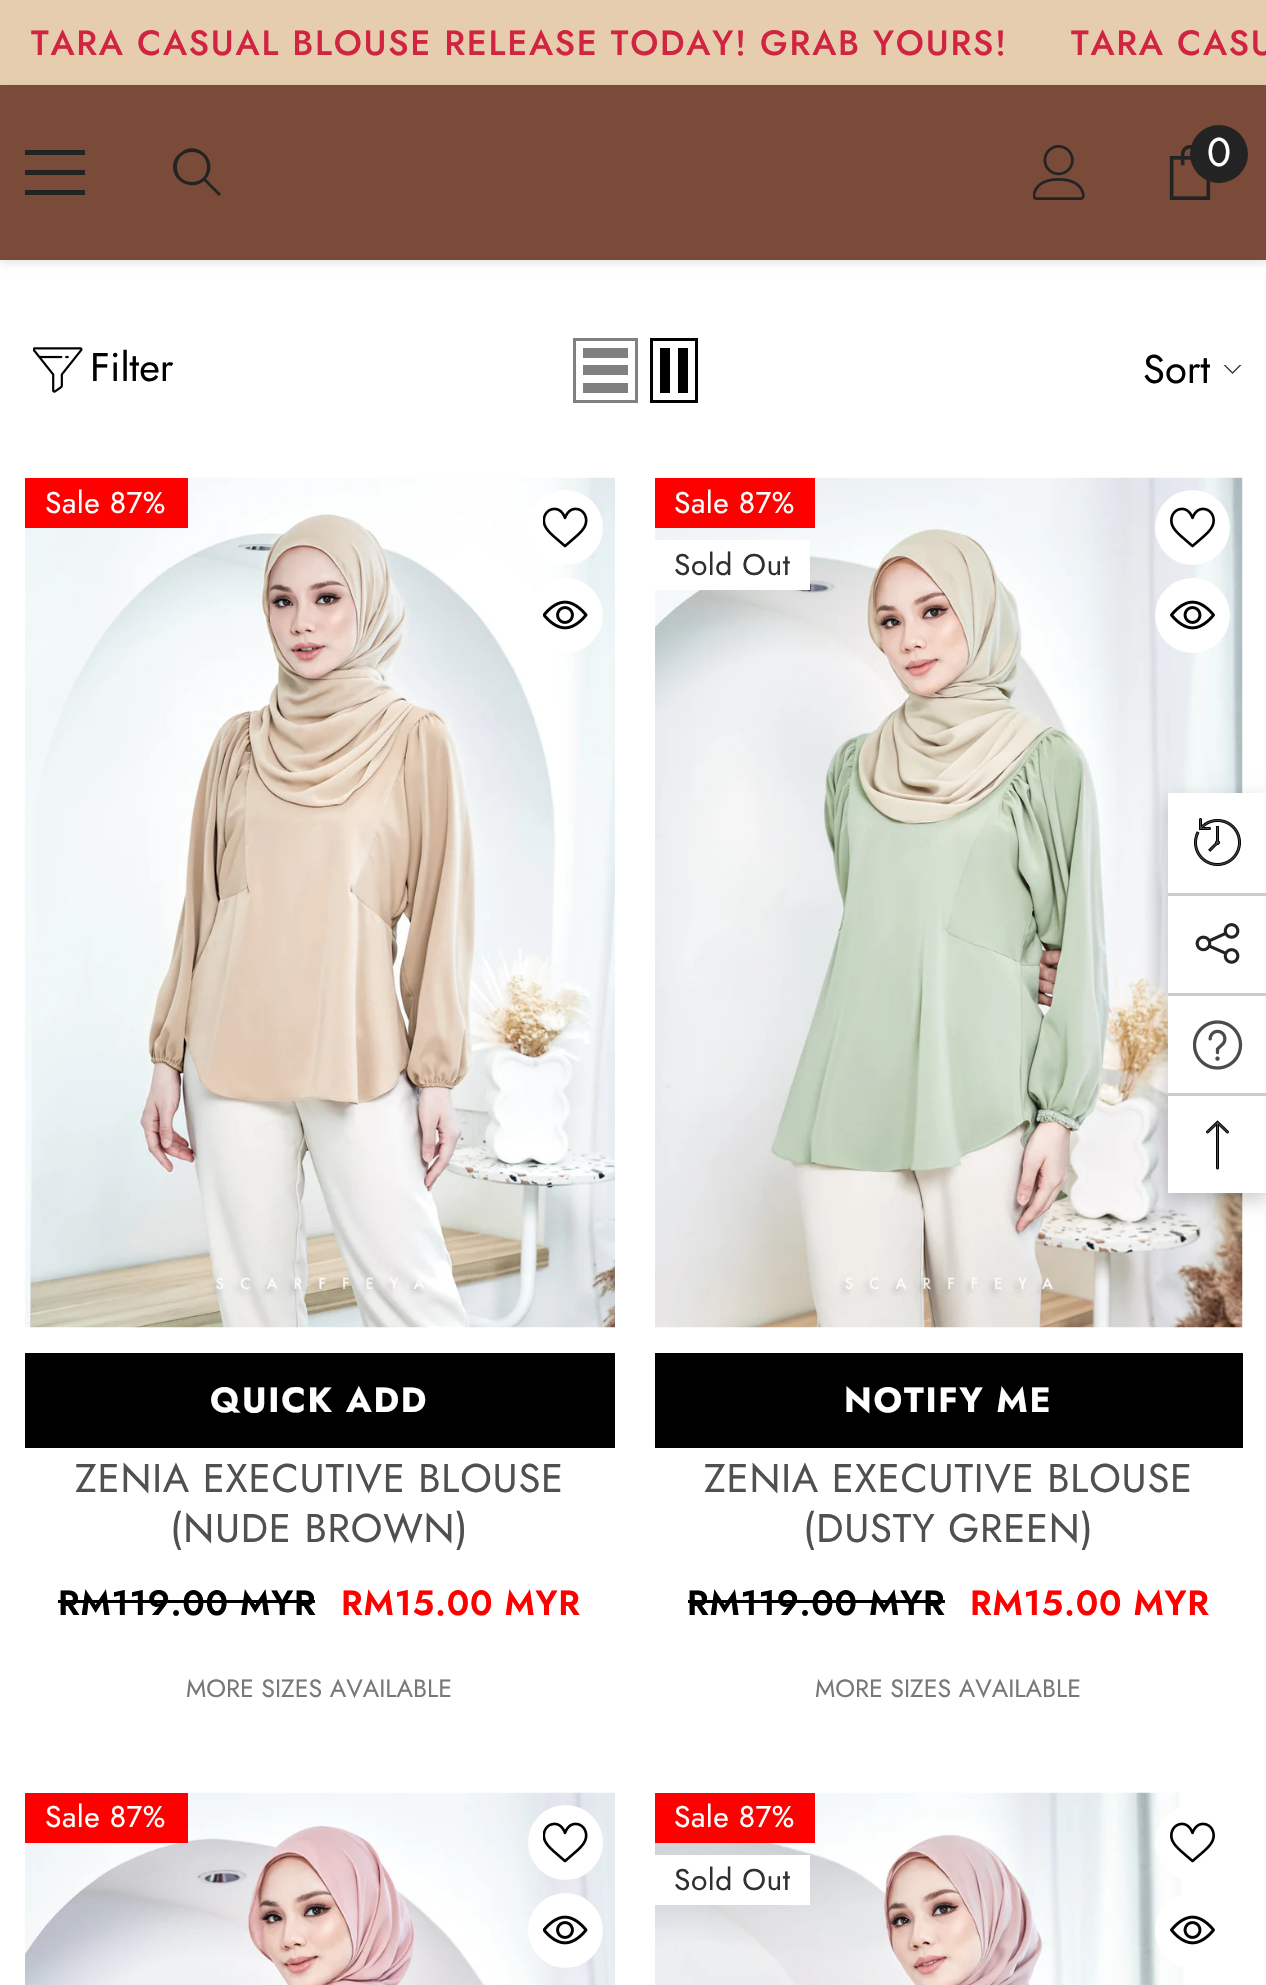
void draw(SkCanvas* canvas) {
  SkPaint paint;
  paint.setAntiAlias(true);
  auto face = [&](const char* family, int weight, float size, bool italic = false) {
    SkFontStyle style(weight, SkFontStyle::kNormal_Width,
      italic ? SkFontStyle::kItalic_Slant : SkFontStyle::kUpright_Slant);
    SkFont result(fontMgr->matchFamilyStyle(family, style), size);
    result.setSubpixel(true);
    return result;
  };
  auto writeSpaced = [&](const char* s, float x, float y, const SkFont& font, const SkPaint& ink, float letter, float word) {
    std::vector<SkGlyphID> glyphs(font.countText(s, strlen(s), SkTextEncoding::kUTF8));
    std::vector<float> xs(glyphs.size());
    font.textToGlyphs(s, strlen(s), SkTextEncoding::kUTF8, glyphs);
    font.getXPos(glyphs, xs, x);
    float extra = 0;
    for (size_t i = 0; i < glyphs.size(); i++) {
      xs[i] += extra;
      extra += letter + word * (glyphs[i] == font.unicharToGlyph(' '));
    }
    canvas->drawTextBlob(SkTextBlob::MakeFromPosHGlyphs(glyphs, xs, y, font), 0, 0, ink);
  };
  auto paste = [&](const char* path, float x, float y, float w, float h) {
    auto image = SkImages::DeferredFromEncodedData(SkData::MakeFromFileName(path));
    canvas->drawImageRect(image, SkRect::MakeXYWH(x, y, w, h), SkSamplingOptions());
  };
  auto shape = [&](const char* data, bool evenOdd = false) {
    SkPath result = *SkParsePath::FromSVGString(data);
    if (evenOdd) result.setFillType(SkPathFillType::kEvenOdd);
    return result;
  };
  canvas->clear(0xffffffff);
  paint.setColor(0xffe6cdad);
  canvas->drawRect(SkRect::MakeXYWH(0, 0, 1266, 85), paint);
  paint.setColor(0x1a000000);
  paint.setMaskFilter(SkMaskFilter::MakeBlur(kNormal_SkBlurStyle, 4));
  canvas->drawRect(SkRect::MakeXYWH(0, 88, 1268, 175), paint);
  paint.setMaskFilter(nullptr);
  {
    const struct { float x, y, w, h; SkColor color; } items[] = {
      {0, 85, 1266, 175, 0xff7a4b39},
      {25, 170, 60, 5, 0xff232323},
      {25, 150, 60, 5, 0xff232323},
      {25, 190, 60, 5, 0xff232323},
    };
    for (auto [x, y, w, h, color] : items) {
      paint.setColor(color);
      canvas->drawRect(SkRect::MakeXYWH(x, y, w, h), paint);
    }
  }
  canvas->drawPath(shape("M173 167C173 182 192 191 204 181L219 196L221 194L206 179C221 161 196 137 179 154C175 157 173 162 173 167ZM177 167C177 147 207 147 207 167C207 187 177 187 177 167Z"), paint);
  paste("img/1.png", 1033, 145, 52, 55);
  paste("img/2.png", 1169, 145, 42, 55);
  canvas->drawCircle(1219, 154, 29, paint);
  paste("img/3.png", 33, 347, 50, 46);
  paint.setStroke(true);
  paint.setStrokeWidth(3);
  paint.setColor(0xff808080);
  canvas->drawRect(SkRect::MakeXYWH(574.5f, 339.5f, 62, 62), paint);
  paint.setStroke(false);
  {
    const struct { float x, y, w, h; SkColor color; } items[] = {
      {583, 383, 45, 10, 0xff808080},
      {583, 365, 45, 10, 0xff808080},
      {583, 348, 45, 10, 0xff808080},
    };
    for (auto [x, y, w, h, color] : items) {
      paint.setColor(color);
      canvas->drawRect(SkRect::MakeXYWH(x, y, w, h), paint);
    }
  }
  paint.setStroke(true);
  paint.setColor(0xff000000);
  canvas->drawRect(SkRect::MakeXYWH(651.5f, 339.5f, 45, 62), paint);
  paint.setStroke(false);
  canvas->drawRect(SkRect::MakeXYWH(678, 348, 10, 45), paint);
  canvas->drawRect(SkRect::MakeXYWH(660, 348, 10, 45), paint);
  canvas->save();
  canvas->clipRect(SkRect::MakeXYWH(1223, 365, 20, 13));
  paint.setColor(0xff3c3c3c);
  canvas->drawPath(shape("M1232.5 372L1224.5 364H1222.5L1232.5 374L1242.5 364H1240.5Z"), paint);
  canvas->restore();
  paste("img/4.png", 25, 477, 590, 851);
  paint.setColor(0xffff0000);
  canvas->drawRect(SkRect::MakeXYWH(25, 478, 163, 50), paint);
  paint.setColor(0xffffffff);
  canvas->drawCircle(565.5f, 527.5f, 37.5f, paint);
  paste("img/5.png", 543, 507, 45, 41);
  canvas->drawCircle(565.5f, 615.5f, 37.5f, paint);
  paste("img/6.png", 543, 600, 45, 30);
  paint.setColor(0xff000000);
  canvas->drawRect(SkRect::MakeXYWH(25, 1353, 590, 95), paint);
  canvas->drawRect(SkRect::MakeXYWH(58, 1600, 257, 3), paint);
  paste("img/7.png", 655, 477, 588, 851);
  paint.setColor(0xffff0000);
  canvas->drawRect(SkRect::MakeXYWH(655, 478, 160, 50), paint);
  paint.setColor(0xffffffff);
  canvas->drawRect(SkRect::MakeXYWH(655, 540, 155, 50), paint);
  canvas->drawCircle(1192.5f, 527.5f, 37.5f, paint);
  paste("img/8.png", 1170, 507, 45, 41);
  canvas->drawCircle(1192.5f, 615.5f, 37.5f, paint);
  paste("img/9.png", 1170, 600, 45, 30);
  paint.setColor(0xff000000);
  canvas->drawRect(SkRect::MakeXYWH(655, 1353, 588, 95), paint);
  canvas->drawRect(SkRect::MakeXYWH(688, 1600, 257, 3), paint);
  paste("img/10.png", 25, 1792, 590, 193);
  paint.setColor(0xffff0000);
  canvas->drawRect(SkRect::MakeXYWH(25, 1793, 163, 50), paint);
  paint.setColor(0xffffffff);
  canvas->drawCircle(565.5f, 1842.5f, 37.5f, paint);
  paste("img/5.png", 543, 1822, 45, 41);
  canvas->drawCircle(565.5f, 1930.5f, 37.5f, paint);
  paste("img/6.png", 543, 1915, 45, 30);
  paste("img/11.png", 655, 1792, 529, 193);
  paint.setColor(0xffff0000);
  canvas->drawRect(SkRect::MakeXYWH(655, 1793, 160, 50), paint);
  paint.setColor(0xffffffff);
  canvas->drawRect(SkRect::MakeXYWH(655, 1855, 155, 50), paint);
  canvas->drawCircle(1192.5f, 1842.5f, 37.5f, paint);
  paste("img/8.png", 1170, 1822, 45, 41);
  canvas->drawCircle(1192.5f, 1930.5f, 37.5f, paint);
  paste("img/9.png", 1170, 1915, 45, 30);
  paint.setColor(0x33000000);
  paint.setMaskFilter(SkMaskFilter::MakeBlur(kNormal_SkBlurStyle, 9));
  canvas->drawRect(SkRect::MakeXYWH(1168, 800, 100, 400), paint);
  paint.setMaskFilter(nullptr);
  paint.setColor(0xffffffff);
  canvas->drawRect(SkRect::MakeXYWH(1168, 793, 98, 400), paint);
  paste("img/12.png", 1194, 818, 47, 48);
  paint.setColor(0xffcccccc);
  canvas->drawRect(SkRect::MakeXYWH(1168, 893, 98, 3), paint);
  paste("img/13.png", 1195, 923, 45, 41);
  canvas->drawRect(SkRect::MakeXYWH(1168, 993, 98, 3), paint);
  paste("img/14.png", 1193, 1020, 50, 50);
  canvas->drawRect(SkRect::MakeXYWH(1168, 1093, 98, 3), paint);
  paste("img/15.png", 1206, 1120, 23, 50);
  auto f0 = face("Jost", 500, 35);
  paint.setColor(0xffd12442);
  writeSpaced("TARA CASUAL BLOUSE RELEASE TODAY! GRAB YOURS!", 31, 55, f0, paint, 1.75f, 0);
  writeSpaced("TARA CASU", 1071, 55, f0, paint, 1.75f, 0);
  auto f1 = face("Jost", 400, 40);
  paint.setColor(0xffffffff);
  canvas->drawString("0", 1207, 166, f1, paint);
  paint.setColor(0xff000000);
  canvas->drawString("Filter", 90, 381, f1, paint);
  canvas->drawString("Sort", 1143, 383, f1, paint);
  auto f2 = face("Jost", 400, 30);
  paint.setColor(0xffffffff);
  writeSpaced("Sale 87%", 45, 513, f2, paint, 0.5f, 0);
  auto f3 = face("Jost", 700, 35);
  writeSpaced("QUICK ADD", 210, 1412, f3, paint, 1.75f, 0);
  paint.setColor(0xff505050);
  writeSpaced("ZENIA EXECUTIVE BLOUSE", 75, 1492, f1, paint, 0.8f, 0);
  writeSpaced("(NUDE BROWN)", 170, 1542, f1, paint, 0.8f, 0);
  auto f4 = face("Jost", 600, 35);
  paint.setColor(0xff000000);
  writeSpaced("RM119.00 MYR", 58, 1615, f4, paint, 0.75f, 0);
  paint.setColor(0xffff0000);
  writeSpaced("RM15.00 MYR", 341, 1615, f4, paint, 0.75f, 0);
  auto f5 = face("Jost", 400, 25);
  paint.setColor(0xff787878);
  canvas->drawString("MORE SIZES AVAILABLE", 186, 1697, f5, paint);
  paint.setColor(0xffffffff);
  writeSpaced("Sale 87%", 674, 513, f2, paint, 0.5f, 0);
  paint.setColor(0xff31302f);
  writeSpaced("Sold Out", 674, 575, f2, paint, 0.5f, 0);
  paint.setColor(0xffffffff);
  writeSpaced("NOTIFY ME", 844, 1412, f3, paint, 1.75f, 0);
  paint.setColor(0xff505050);
  writeSpaced("ZENIA EXECUTIVE BLOUSE", 704, 1492, f1, paint, 0.8f, 0);
  writeSpaced("(DUSTY GREEN)", 803, 1542, f1, paint, 0.8f, 0);
  paint.setColor(0xff000000);
  writeSpaced("RM119.00 MYR", 687, 1615, f4, paint, 0.75f, 0);
  paint.setColor(0xffff0000);
  writeSpaced("RM15.00 MYR", 970, 1615, f4, paint, 0.75f, 0);
  paint.setColor(0xff787878);
  canvas->drawString("MORE SIZES AVAILABLE", 815, 1697, f5, paint);
  paint.setColor(0xffffffff);
  writeSpaced("Sale 87%", 45, 1827, f2, paint, 0.5f, 0);
  writeSpaced("Sale 87%", 674, 1827, f2, paint, 0.5f, 0);
  paint.setColor(0xff31302f);
  writeSpaced("Sold Out", 674, 1890, f2, paint, 0.5f, 0);
}
